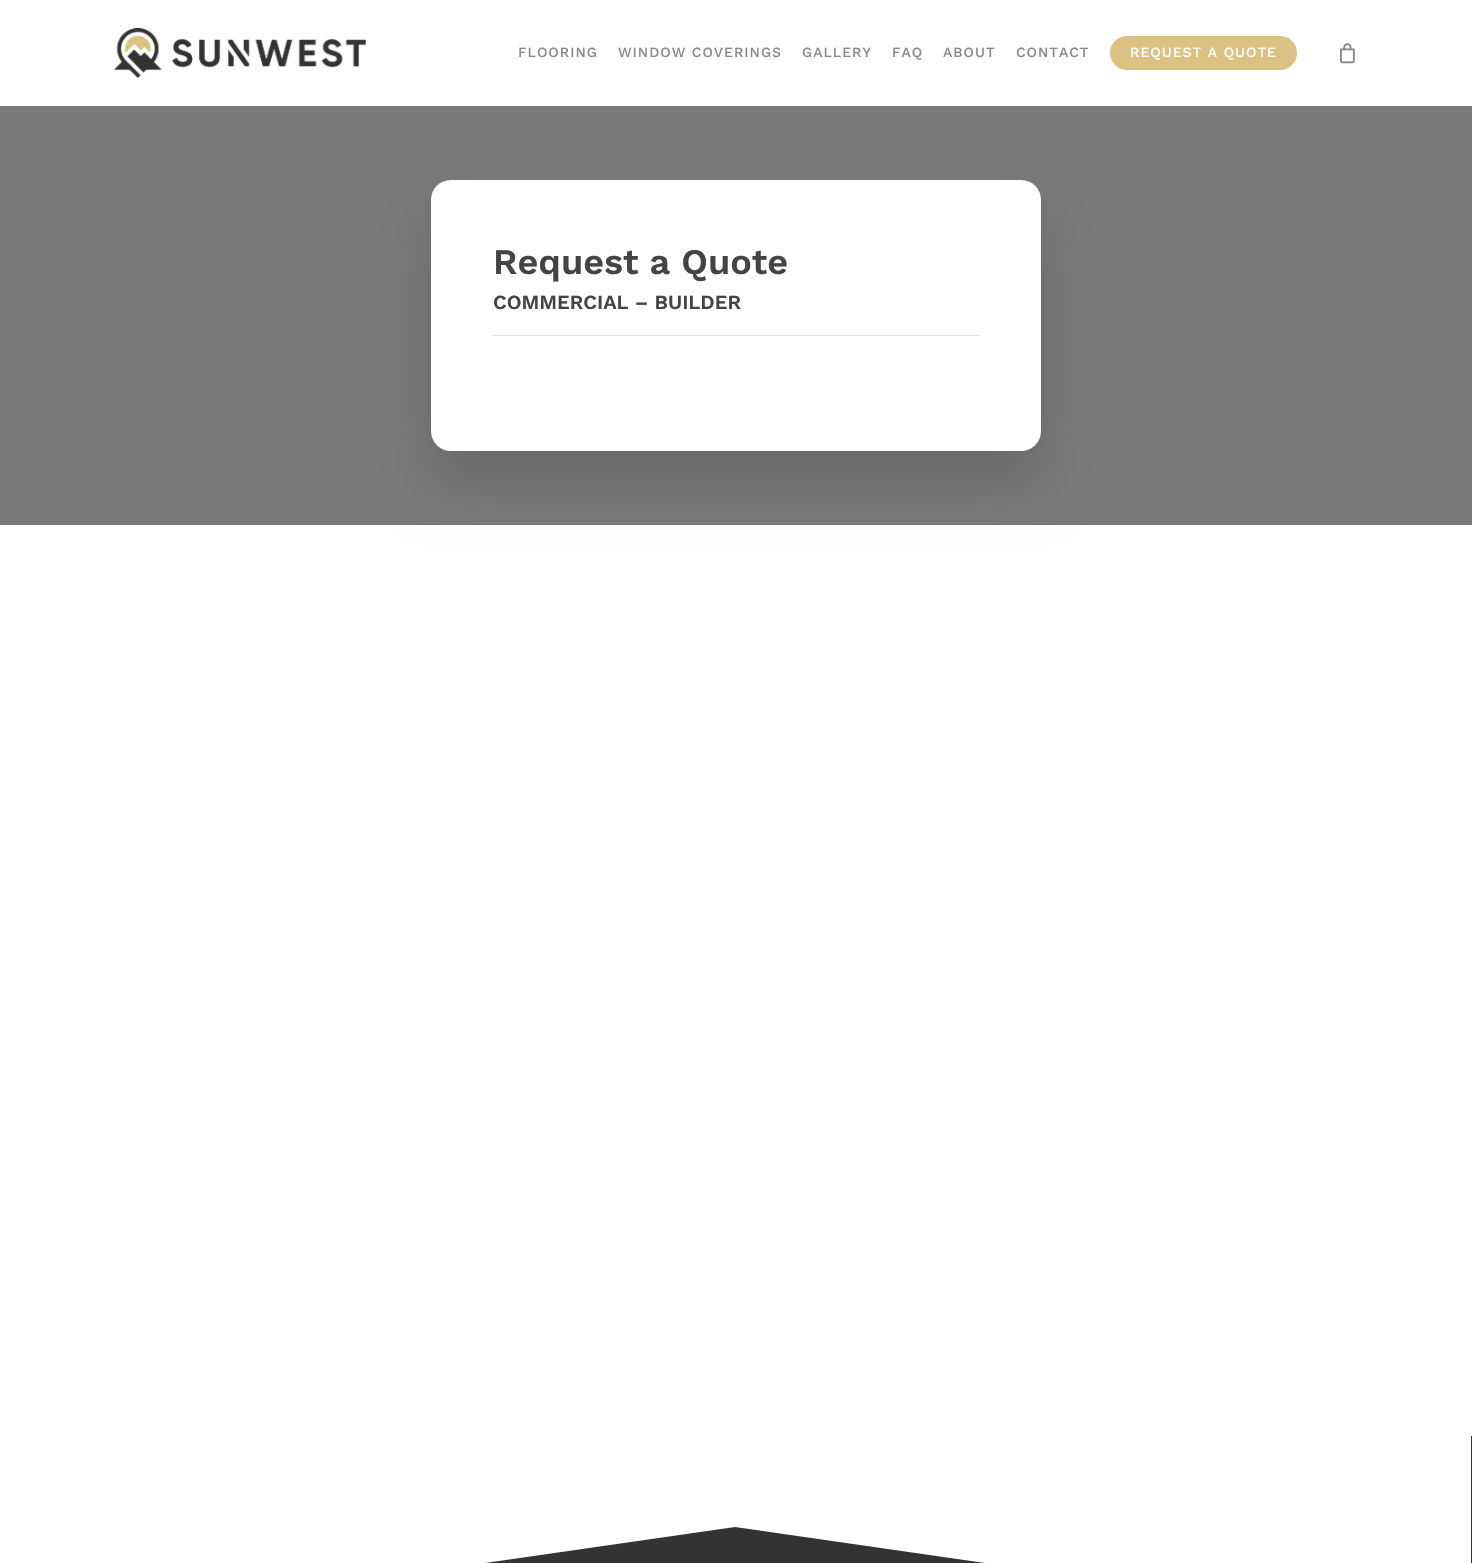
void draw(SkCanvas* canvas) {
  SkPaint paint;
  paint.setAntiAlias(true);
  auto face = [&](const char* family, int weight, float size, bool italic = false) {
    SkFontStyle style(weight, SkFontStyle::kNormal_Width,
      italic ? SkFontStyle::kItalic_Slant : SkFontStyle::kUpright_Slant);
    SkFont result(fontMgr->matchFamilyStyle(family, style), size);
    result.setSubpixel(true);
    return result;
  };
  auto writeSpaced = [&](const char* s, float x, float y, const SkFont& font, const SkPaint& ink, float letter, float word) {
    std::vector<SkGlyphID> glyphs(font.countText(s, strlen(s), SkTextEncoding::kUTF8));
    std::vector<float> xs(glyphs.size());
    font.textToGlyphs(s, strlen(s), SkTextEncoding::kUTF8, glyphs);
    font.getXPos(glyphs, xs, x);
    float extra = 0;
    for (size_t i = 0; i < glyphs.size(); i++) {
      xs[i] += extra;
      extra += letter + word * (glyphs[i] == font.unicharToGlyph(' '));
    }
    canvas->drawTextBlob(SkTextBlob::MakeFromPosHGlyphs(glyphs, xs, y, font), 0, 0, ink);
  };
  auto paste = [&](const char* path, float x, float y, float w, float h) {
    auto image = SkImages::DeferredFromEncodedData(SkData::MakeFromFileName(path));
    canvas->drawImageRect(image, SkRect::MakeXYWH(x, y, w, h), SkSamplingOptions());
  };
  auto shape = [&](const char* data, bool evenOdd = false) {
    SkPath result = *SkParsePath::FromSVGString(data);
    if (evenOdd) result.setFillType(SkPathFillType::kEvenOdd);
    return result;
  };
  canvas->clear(0xffffffff);
  paste("img/1.png", 114, 28, 252, 50);
  paint.setColor(0xffdbc283);
  canvas->drawRoundRect(SkRect::MakeXYWH(1110, 36, 187, 34), 17, 17, paint);
  paste("img/2.png", 1340, 43, 15, 21);
  paint.setColor(0xff7a7a7a);
  canvas->drawRect(SkRect::MakeXYWH(0, 106, 1472, 419), paint);
  paint.setColor(0x26000000);
  paint.setMaskFilter(SkMaskFilter::MakeBlur(kNormal_SkBlurStyle, 30));
  canvas->drawRoundRect(SkRect::MakeXYWH(431, 210, 610, 271), 20, 20, paint);
  paint.setMaskFilter(nullptr);
  paint.setColor(0xffffffff);
  canvas->drawRoundRect(SkRect::MakeXYWH(431, 180, 610, 271), 20, 20, paint);
  paint.setColor(0xffe0e0e0);
  canvas->drawRect(SkRect::MakeXYWH(493, 335, 486, 1), paint);
  paint.setColor(0xff333333);
  canvas->drawRect(SkRect::MakeXYWH(485, 1436, 987, 127), paint);
  paint.setColor(0xffffffff);
  canvas->drawPath(shape("M735 1527L1471 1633V1434H-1V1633Z"), paint);
  auto f0 = face("Work Sans", 500, 14);
  paint.setColor(0xff888888);
  {
    const struct { const char* s; float x, y; } items[] = {
      {"FLOORING", 518, 57},
      {"WINDOW COVERINGS", 618, 57},
      {"GALLERY", 802, 57},
      {"FAQ", 892, 57},
      {"ABOUT", 943, 57},
      {"CONTACT", 1016, 57},
    };
    for (auto [s, x, y] : items) {
      writeSpaced(s, x, y, f0, paint, 1, 0);
    }
  }
  paint.setColor(0xffffffff);
  writeSpaced("REQUEST A QUOTE", 1130, 57, f0, paint, 1, 0);
  auto f1 = face("Work Sans", 600, 36);
  paint.setColor(0xff444444);
  canvas->drawString("Request a Quote", 493, 274, f1, paint);
  auto f2 = face("Work Sans", 600, 20);
  canvas->drawString("COMMERCIAL – BUILDER", 493, 309, f2, paint);
}
